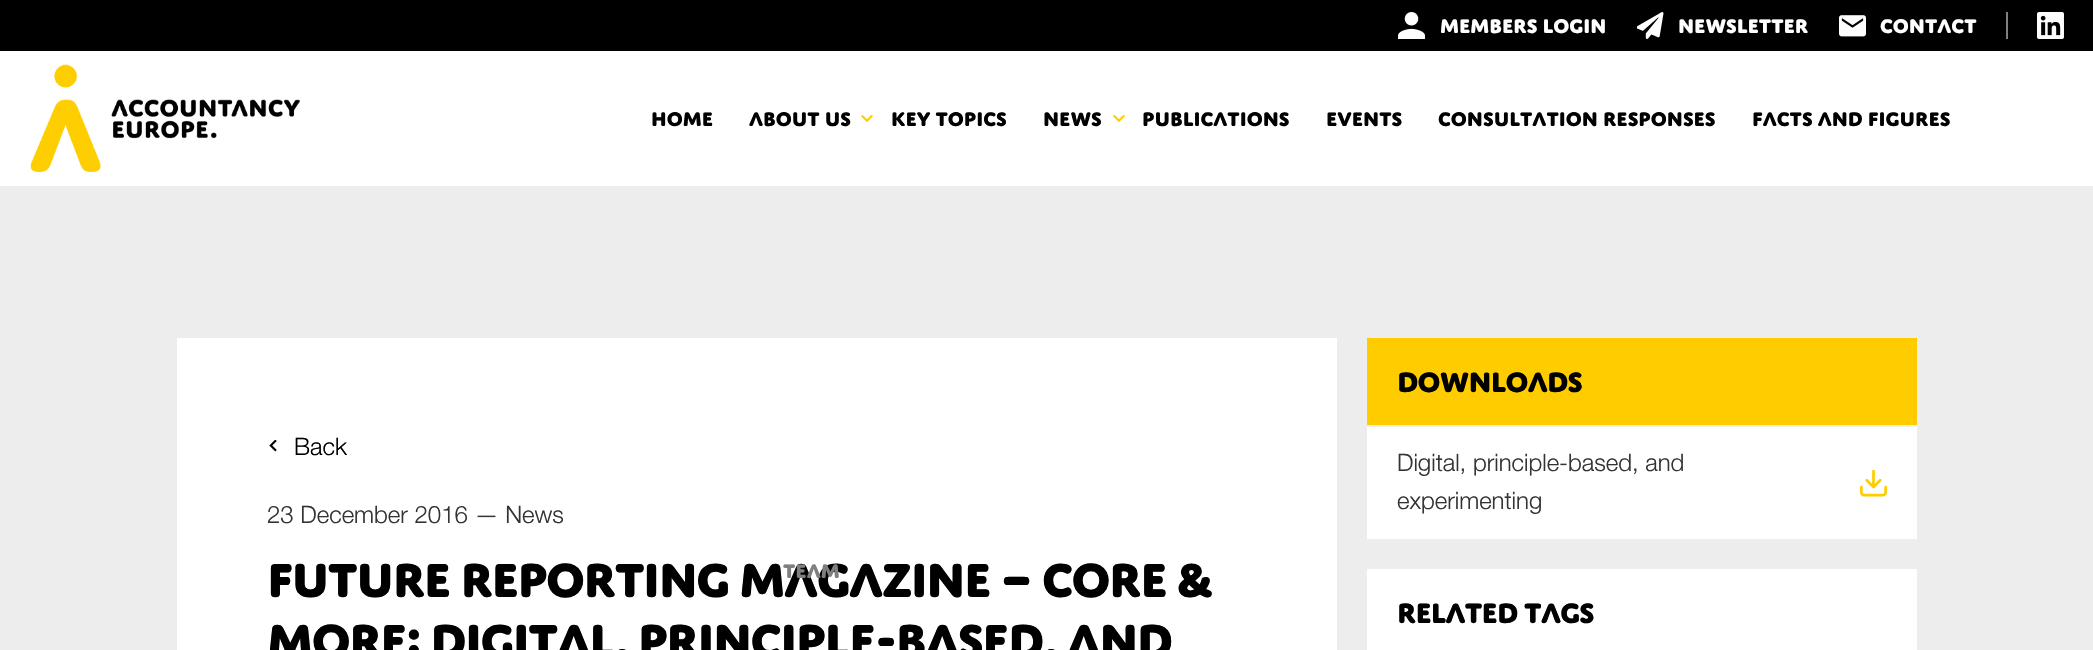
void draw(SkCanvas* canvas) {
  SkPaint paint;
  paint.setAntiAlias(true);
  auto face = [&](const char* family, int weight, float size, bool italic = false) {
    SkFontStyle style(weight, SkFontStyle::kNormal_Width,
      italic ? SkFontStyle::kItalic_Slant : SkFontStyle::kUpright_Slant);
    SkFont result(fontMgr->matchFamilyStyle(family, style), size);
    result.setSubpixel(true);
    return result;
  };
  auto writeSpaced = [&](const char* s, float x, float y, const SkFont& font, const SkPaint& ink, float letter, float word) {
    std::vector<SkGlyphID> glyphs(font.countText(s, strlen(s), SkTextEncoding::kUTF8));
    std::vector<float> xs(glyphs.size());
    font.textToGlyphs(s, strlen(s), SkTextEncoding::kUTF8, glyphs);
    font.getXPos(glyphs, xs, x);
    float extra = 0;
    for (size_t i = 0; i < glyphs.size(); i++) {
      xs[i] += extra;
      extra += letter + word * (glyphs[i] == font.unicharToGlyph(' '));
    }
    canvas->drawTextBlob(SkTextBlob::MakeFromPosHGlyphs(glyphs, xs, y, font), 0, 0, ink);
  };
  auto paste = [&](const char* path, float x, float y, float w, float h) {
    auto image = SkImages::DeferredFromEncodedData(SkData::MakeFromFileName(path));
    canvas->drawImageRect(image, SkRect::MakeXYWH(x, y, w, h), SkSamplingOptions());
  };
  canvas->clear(0xffededed);
  paint.setColor(0xffffffff);
  canvas->drawRect(SkRect::MakeXYWH(0, 51, 2093, 135), paint);
  paint.setColor(0xff000000);
  canvas->drawRect(SkRect::MakeXYWH(0, 0, 2093, 51), paint);
  paste("img/1.png", 1398, 12, 27, 27);
  paste("img/2.png", 1637, 12, 27, 27);
  paste("img/3.png", 1839, 15, 27, 22);
  paint.setColor(0xff808080);
  canvas->drawRect(SkRect::MakeXYWH(2006, 12, 2, 27), paint);
  paste("img/4.png", 2037, 12, 27, 27);
  paste("img/5.png", 30, 64, 270, 108);
  paste("img/6.png", 861, 114, 12, 9);
  paste("img/6.png", 1113, 114, 12, 9);
  paint.setColor(0xffffffff);
  canvas->drawRect(SkRect::MakeXYWH(177, 338, 1160, 312), paint);
  paste("img/7.png", 269, 440, 8, 12);
  canvas->drawRect(SkRect::MakeXYWH(1367, 427, 550, 112), paint);
  paint.setColor(0xffffcc00);
  canvas->drawRect(SkRect::MakeXYWH(1367, 338, 550, 87), paint);
  paste("img/8.png", 1860, 470, 27, 27);
  paint.setColor(0xffffffff);
  canvas->drawRect(SkRect::MakeXYWH(1367, 569, 550, 81), paint);
  auto f0 = face("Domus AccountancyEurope", 800, 21);
  {
    const struct { const char* s; float x, y; } items[] = {
      {"Members login", 1440, 33},
      {"Newsletter", 1678, 33},
      {"Contact", 1880, 33},
    };
    for (auto [s, x, y] : items) {
      canvas->drawString(s, x, y, f0, paint);
    }
  }
  paint.setColor(0xff000000);
  {
    const struct { const char* s; float x, y; } items[] = {
      {"Home", 651, 126},
      {"About us", 749, 126},
      {"Key topics", 891, 126},
      {"News", 1043, 126},
      {"Publications", 1142, 126},
      {"Events", 1326, 126},
      {"Consultation Responses", 1438, 126},
      {"Facts and Figures", 1752, 126},
    };
    for (auto [s, x, y] : items) {
      canvas->drawString(s, x, y, f0, paint);
    }
  }
  auto f1 = face("Helvetica Neue", 300, 24);
  canvas->drawString("Back", 294, 455, f1, paint);
  paint.setColor(0xff333333);
  canvas->drawString("23 December 2016 — News", 267, 523, f1, paint);
  auto f2 = face("Domus AccountancyEurope", 800, 51);
  paint.setColor(0xff000000);
  writeSpaced("Future Reporting Magazine – Core &", 267, 597, f2, paint, -1.5f, 0);
  paint.setColor(0xff7f7f7f);
  canvas->drawString("Team", 783, 578, f0, paint);
  paint.setColor(0xff000000);
  writeSpaced("More: Digital, principle-based, and", 267, 658, f2, paint, -1.5f, 0);
  auto f3 = face("Domus AccountancyEurope", 800, 30);
  writeSpaced("Downloads", 1397, 392, f3, paint, -0.75f, 0);
  paint.setColor(0xff333333);
  canvas->drawString("Digital, principle-based, and", 1397, 471, f1, paint);
  canvas->drawString("experimenting", 1397, 509, f1, paint);
  paint.setColor(0xff000000);
  writeSpaced("Related tags", 1397, 623, f3, paint, -0.75f, 0);
}
